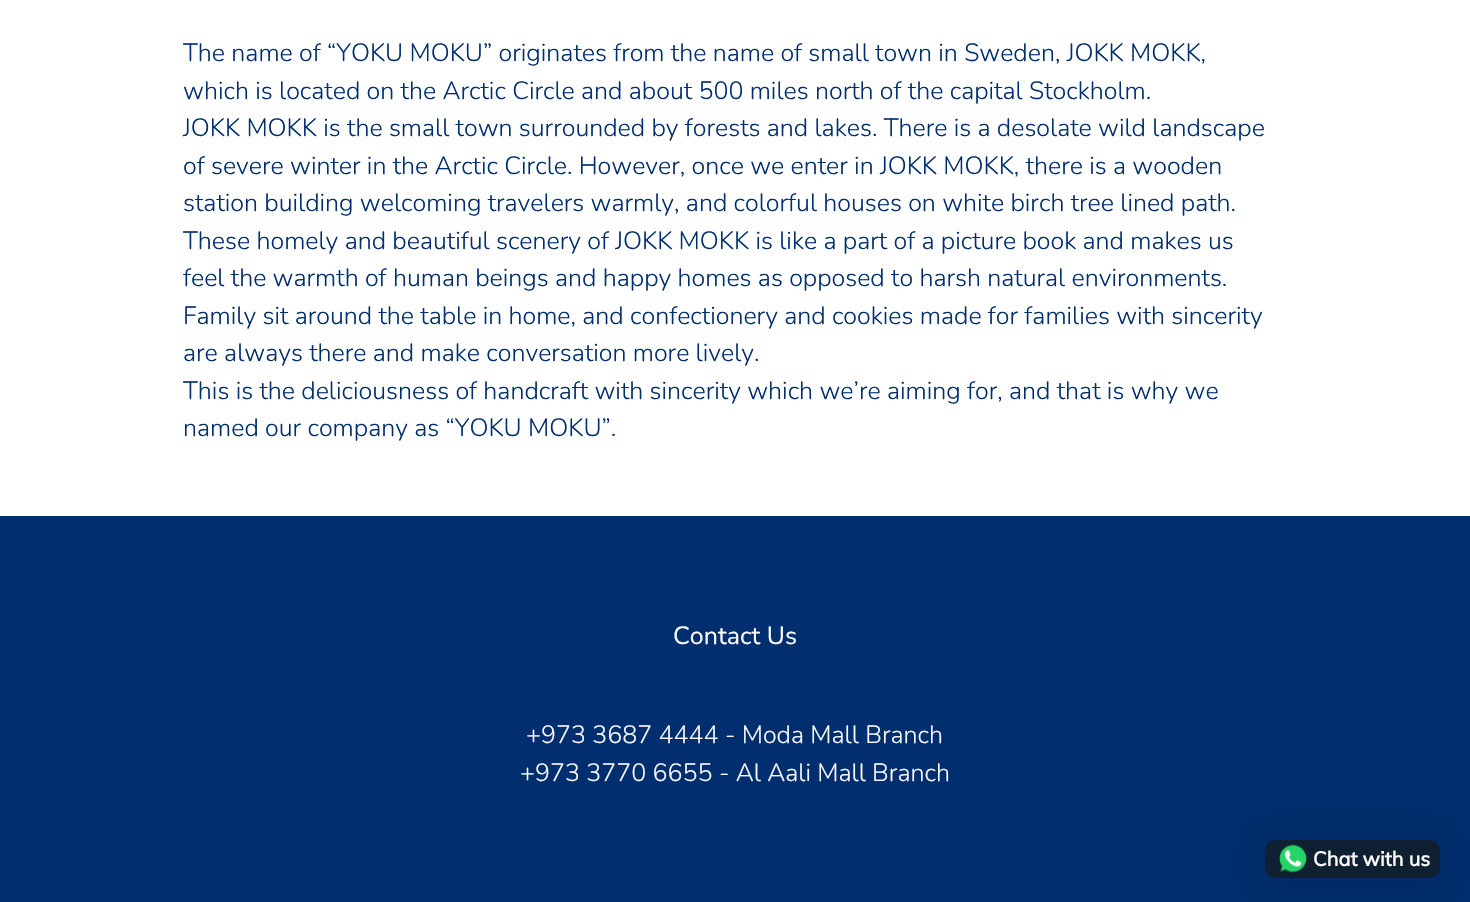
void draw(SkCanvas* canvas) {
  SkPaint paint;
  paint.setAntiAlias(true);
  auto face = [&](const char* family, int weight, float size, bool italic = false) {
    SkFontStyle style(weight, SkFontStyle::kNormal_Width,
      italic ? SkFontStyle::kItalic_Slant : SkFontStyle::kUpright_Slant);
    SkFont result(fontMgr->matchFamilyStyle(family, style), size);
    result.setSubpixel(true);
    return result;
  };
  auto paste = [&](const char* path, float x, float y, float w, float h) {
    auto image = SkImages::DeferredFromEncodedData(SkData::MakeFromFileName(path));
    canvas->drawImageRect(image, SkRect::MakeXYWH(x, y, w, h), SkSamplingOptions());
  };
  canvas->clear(0xffffffff);
  paint.setColor(0xff002e6e);
  canvas->drawRect(SkRect::MakeXYWH(0, 516, 1470, 386), paint);
  paint.setColor(0x29000000);
  paint.setMaskFilter(SkMaskFilter::MakeBlur(kNormal_SkBlurStyle, 20));
  canvas->drawRoundRect(SkRect::MakeXYWH(1265, 843, 175, 37), 10, 10, paint);
  paint.setMaskFilter(nullptr);
  paint.setColor(0xff102033);
  canvas->drawRoundRect(SkRect::MakeXYWH(1265, 840, 175, 38), 10, 10, paint);
  paste("img/1.png", 1279, 844, 28, 29);
  auto f0 = face("Nunito", 300, 25);
  paint.setColor(0xff002e6e);
  {
    const struct { const char* s; float x, y; } items[] = {
      {"The name of “YOKU MOKU” originates from the name of small town in Sweden, JOKK MOKK,", 183, 61},
      {"which is located on the Arctic Circle and about 500 miles north of the capital Stockholm.", 183, 99},
      {"JOKK MOKK is the small town surrounded by forests and lakes. There is a desolate wild landscape", 183, 136},
      {"of severe winter in the Arctic Circle. However, once we enter in JOKK MOKK, there is a wooden", 183, 174},
      {"station building welcoming travelers warmly, and colorful houses on white birch tree lined path.", 183, 211},
      {"These homely and beautiful scenery of JOKK MOKK is like a part of a picture book and makes us", 183, 249},
      {"feel the warmth of human beings and happy homes as opposed to harsh natural environments.", 183, 286},
      {"Family sit around the table in home, and confectionery and cookies made for families with sincerity", 183, 324},
      {"are always there and make conversation more lively.", 183, 361},
      {"This is the deliciousness of handcraft with sincerity which we’re aiming for, and that is why we", 183, 399},
      {"named our company as “YOKU MOKU”.", 183, 436},
    };
    for (auto [s, x, y] : items) {
      canvas->drawString(s, x, y, f0, paint);
    }
  }
  auto f1 = face("Nunito", 400, 25);
  paint.setColor(0xfffafafa);
  canvas->drawString("Contact Us", 673, 644, f1, paint);
  canvas->drawString("+973 3687 4444 - Moda Mall Branch", 526, 743, f0, paint);
  canvas->drawString("+973 3770 6655 - Al Aali Mall Branch", 520, 781, f0, paint);
  auto f2 = face("Muli", 700, 20);
  canvas->drawString("Chat with us", 1313, 866, f2, paint);
}
